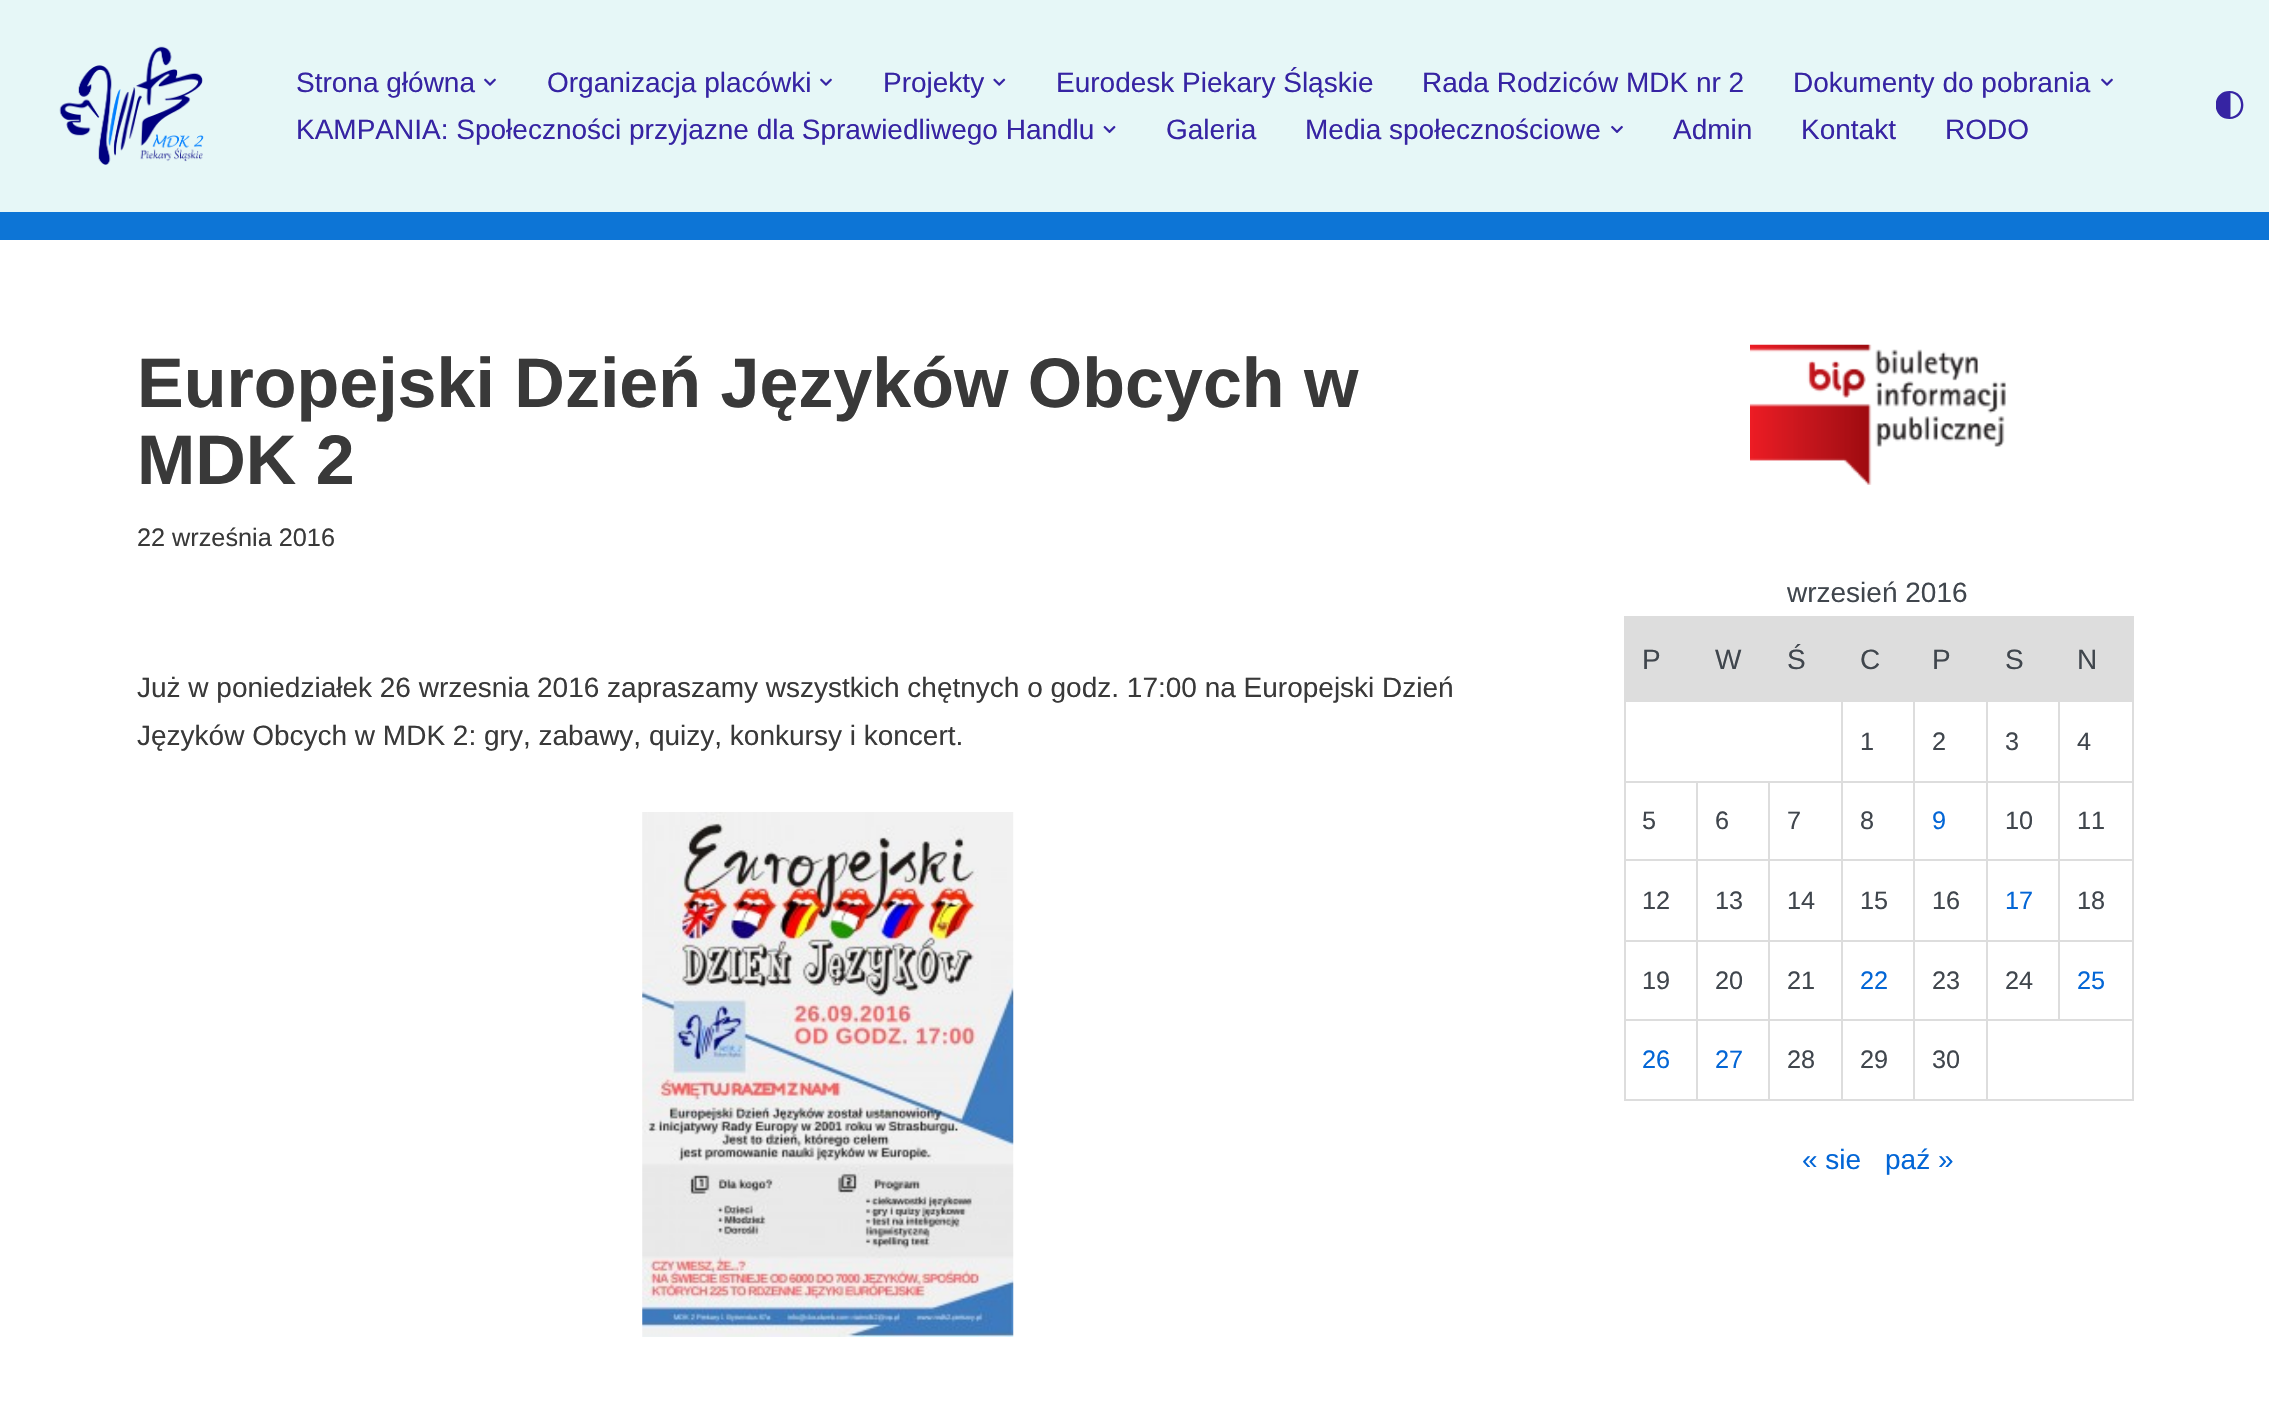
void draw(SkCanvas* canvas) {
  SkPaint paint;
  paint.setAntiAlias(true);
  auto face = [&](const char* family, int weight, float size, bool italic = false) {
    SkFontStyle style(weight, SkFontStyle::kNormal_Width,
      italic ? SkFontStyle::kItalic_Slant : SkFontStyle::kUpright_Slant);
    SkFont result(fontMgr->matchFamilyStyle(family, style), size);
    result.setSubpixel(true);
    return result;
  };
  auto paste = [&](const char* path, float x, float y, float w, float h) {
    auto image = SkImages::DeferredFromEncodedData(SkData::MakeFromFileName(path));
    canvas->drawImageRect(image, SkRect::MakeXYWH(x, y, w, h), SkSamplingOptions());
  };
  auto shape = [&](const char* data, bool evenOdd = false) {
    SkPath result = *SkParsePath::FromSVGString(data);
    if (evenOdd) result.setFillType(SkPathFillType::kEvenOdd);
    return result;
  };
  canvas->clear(0xffffffff);
  paint.setColor(0xffe6f7f7);
  canvas->drawRect(SkRect::MakeXYWH(0, 0, 2269, 212), paint);
  paint.setColor(0xff0d75d6);
  canvas->drawRect(SkRect::MakeXYWH(0, 212, 2269, 28), paint);
  paste("img/1.png", 59, 46, 145, 119);
  paste("img/2.png", 484, 78, 12, 8);
  paste("img/2.png", 820, 78, 12, 8);
  paste("img/3.png", 993, 78, 13, 8);
  paste("img/2.png", 2101, 78, 12, 8);
  paste("img/4.png", 1103, 125, 13, 9);
  paste("img/5.png", 1611, 125, 12, 8);
  canvas->save();
  canvas->clipRect(SkRect::MakeXYWH(2216, 91, 28, 28));
  paint.setColor(0xff3624a3);
  canvas->drawPath(shape("M2229.5 91C2211 91 2211 119 2229.5 119C2248 119 2248 91 2229.5 91ZM2230.5 117V93C2244.5 94.5 2244.5 115.5 2230.5 117Z"), paint);
  canvas->restore();
  paste("img/6.png", 642, 812, 372, 525);
  paste("img/7.png", 1750, 344, 256, 141);
  {
    const struct { float x, y, w, h; SkColor color; } items[] = {
      {1624, 618, 436, 84, 0xffdddddd},
      {2060, 618, 72, 82, 0xffdddddd},
      {1624, 616, 509, 2, 0xffdddddd},
      {2058, 700, 75, 2, 0xffdddddd},
      {2058, 781, 75, 2, 0xffdddddd},
      {2058, 859, 75, 2, 0xffdddddd},
      {2058, 940, 75, 2, 0xffdddddd},
      {1986, 1019, 147, 2, 0xffdddddd},
      {2132, 1019, 2, 82, 0xffdddddd},
      {2132, 940, 2, 80, 0xffdddddd},
      {2132, 859, 2, 83, 0xffdddddd},
      {2132, 781, 2, 80, 0xffdddddd},
      {2132, 700, 2, 82, 0xffdddddd},
      {2132, 616, 2, 86, 0xffdddddd},
      {2058, 940, 2, 80, 0xffdddddd},
      {1986, 940, 74, 2, 0xffdddddd},
      {2058, 859, 2, 83, 0xffdddddd},
      {1986, 859, 74, 2, 0xffdddddd},
      {2058, 781, 2, 80, 0xffdddddd},
      {1986, 781, 74, 2, 0xffdddddd},
      {1986, 1099, 147, 2, 0xffdddddd},
      {1986, 1019, 2, 82, 0xffdddddd},
      {1913, 1019, 75, 2, 0xffdddddd},
      {1986, 940, 2, 80, 0xffdddddd},
      {1913, 940, 75, 2, 0xffdddddd},
      {1986, 859, 2, 83, 0xffdddddd},
      {1913, 859, 75, 2, 0xffdddddd},
      {1986, 781, 2, 80, 0xffdddddd},
      {1913, 781, 75, 2, 0xffdddddd},
      {1913, 1099, 75, 2, 0xffdddddd},
      {1913, 1019, 2, 82, 0xffdddddd},
      {1841, 1019, 74, 2, 0xffdddddd},
      {1913, 940, 2, 80, 0xffdddddd},
      {1841, 940, 74, 2, 0xffdddddd},
      {1913, 859, 2, 83, 0xffdddddd},
      {1841, 859, 74, 2, 0xffdddddd},
      {1913, 781, 2, 80, 0xffdddddd},
      {1841, 781, 74, 2, 0xffdddddd},
      {1841, 1099, 74, 2, 0xffdddddd},
      {1841, 1019, 2, 82, 0xffdddddd},
      {1768, 1019, 75, 2, 0xffdddddd},
      {1841, 940, 2, 80, 0xffdddddd},
      {1768, 940, 75, 2, 0xffdddddd},
      {1841, 859, 2, 83, 0xffdddddd},
      {1768, 859, 75, 2, 0xffdddddd},
      {1841, 781, 2, 80, 0xffdddddd},
      {1768, 781, 75, 2, 0xffdddddd},
      {1841, 700, 2, 82, 0xffdddddd},
      {1913, 700, 2, 82, 0xffdddddd},
      {1986, 700, 2, 82, 0xffdddddd},
      {2058, 700, 2, 82, 0xffdddddd},
      {1768, 1099, 75, 2, 0xffdddddd},
      {1768, 1019, 2, 82, 0xffdddddd},
      {1696, 1019, 73, 2, 0xffdddddd},
      {1768, 940, 2, 80, 0xffdddddd},
      {1696, 940, 73, 2, 0xffdddddd},
      {1768, 859, 2, 83, 0xffdddddd},
      {1696, 859, 73, 2, 0xffdddddd},
      {1768, 781, 2, 80, 0xffdddddd},
      {1696, 781, 73, 2, 0xffdddddd},
      {1696, 1099, 73, 2, 0xffdddddd},
      {1696, 1019, 2, 82, 0xffdddddd},
      {1624, 1019, 74, 2, 0xffdddddd},
      {1696, 940, 2, 80, 0xffdddddd},
      {1624, 940, 74, 2, 0xffdddddd},
      {1696, 859, 2, 83, 0xffdddddd},
      {1624, 859, 74, 2, 0xffdddddd},
      {1696, 781, 2, 80, 0xffdddddd},
      {1624, 781, 74, 2, 0xffdddddd},
      {1624, 1099, 74, 2, 0xffdddddd},
      {1624, 1019, 2, 82, 0xffdddddd},
      {1624, 940, 2, 80, 0xffdddddd},
      {1624, 859, 2, 83, 0xffdddddd},
      {1624, 700, 2, 161, 0xffdddddd},
    };
    for (auto [x, y, w, h, color] : items) {
      paint.setColor(color);
      canvas->drawRect(SkRect::MakeXYWH(x, y, w, h), paint);
    }
  }
  auto f0 = face("Liberation Sans", 400, 28);
  paint.setColor(0xff3624a3);
  {
    const struct { const char* s; float x, y; } items[] = {
      {"Strona główna", 296, 92},
      {"Organizacja placówki", 547, 92},
      {"Projekty", 883, 92},
      {"Eurodesk Piekary Śląskie", 1056, 92},
      {"Rada Rodziców MDK nr 2", 1422, 92},
      {"Dokumenty do pobrania", 1793, 92},
      {"KAMPANIA: Społeczności przyjazne dla Sprawiedliwego Handlu", 296, 139},
      {"Galeria", 1166, 139},
      {"Media społecznościowe", 1305, 139},
      {"Admin", 1673, 139},
      {"Kontakt", 1801, 139},
      {"RODO", 1945, 139},
    };
    for (auto [s, x, y] : items) {
      canvas->drawString(s, x, y, f0, paint);
    }
  }
  auto f1 = face("Liberation Sans", 700, 70);
  paint.setColor(0xff393939);
  canvas->drawString("Europejski Dzień Języków Obcych w", 137, 407, f1, paint);
  canvas->drawString("MDK 2", 137, 484, f1, paint);
  auto f2 = face("Liberation Sans", 400, 25.25f);
  canvas->drawString("22 września 2016", 137, 546, f2, paint);
  canvas->drawString("Już w poniedziałek 26 wrzesnia 2016 zapraszamy wszystkich chętnych o godz. 17:00 na Europejski Dzień", 137, 697, f0, paint);
  canvas->drawString("Języków Obcych w MDK 2: gry, zabawy, quizy, konkursy i koncert.", 137, 745, f0, paint);
  paint.setColor(0xff40464d);
  {
    const struct { const char* s; float x, y; } items[] = {
      {"wrzesień 2016", 1787, 602},
      {"P", 1642, 669},
      {"W", 1715, 669},
      {"Ś", 1787, 669},
      {"C", 1860, 669},
      {"P", 1932, 669},
      {"S", 2005, 669},
      {"N", 2077, 669},
    };
    for (auto [s, x, y] : items) {
      canvas->drawString(s, x, y, f0, paint);
    }
  }
  {
    const struct { const char* s; float x, y; } items[] = {
      {"1", 1860, 750},
      {"2", 1932, 750},
      {"3", 2005, 750},
      {"4", 2077, 750},
      {"5", 1642, 829},
      {"6", 1715, 829},
      {"7", 1787, 829},
      {"8", 1860, 829},
    };
    for (auto [s, x, y] : items) {
      canvas->drawString(s, x, y, f2, paint);
    }
  }
  paint.setColor(0xff0366d6);
  canvas->drawString("9", 1932, 829, f2, paint);
  paint.setColor(0xff40464d);
  {
    const struct { const char* s; float x, y; } items[] = {
      {"10", 2005, 829},
      {"11", 2077, 829},
      {"12", 1642, 909},
      {"13", 1715, 909},
      {"14", 1787, 909},
      {"15", 1860, 909},
      {"16", 1932, 909},
    };
    for (auto [s, x, y] : items) {
      canvas->drawString(s, x, y, f2, paint);
    }
  }
  paint.setColor(0xff0366d6);
  canvas->drawString("17", 2005, 909, f2, paint);
  paint.setColor(0xff40464d);
  {
    const struct { const char* s; float x, y; } items[] = {
      {"18", 2077, 909},
      {"19", 1642, 989},
      {"20", 1715, 989},
      {"21", 1787, 989},
    };
    for (auto [s, x, y] : items) {
      canvas->drawString(s, x, y, f2, paint);
    }
  }
  paint.setColor(0xff0366d6);
  canvas->drawString("22", 1860, 989, f2, paint);
  paint.setColor(0xff40464d);
  canvas->drawString("23", 1932, 989, f2, paint);
  canvas->drawString("24", 2005, 989, f2, paint);
  paint.setColor(0xff0366d6);
  {
    const struct { const char* s; float x, y; } items[] = {
      {"25", 2077, 989},
      {"26", 1642, 1068},
      {"27", 1715, 1068},
    };
    for (auto [s, x, y] : items) {
      canvas->drawString(s, x, y, f2, paint);
    }
  }
  paint.setColor(0xff40464d);
  {
    const struct { const char* s; float x, y; } items[] = {
      {"28", 1787, 1068},
      {"29", 1860, 1068},
      {"30", 1932, 1068},
    };
    for (auto [s, x, y] : items) {
      canvas->drawString(s, x, y, f2, paint);
    }
  }
  paint.setColor(0xff0366d6);
  canvas->drawString("« sie", 1802, 1169, f0, paint);
  canvas->drawString("paź »", 1885, 1169, f0, paint);
}
